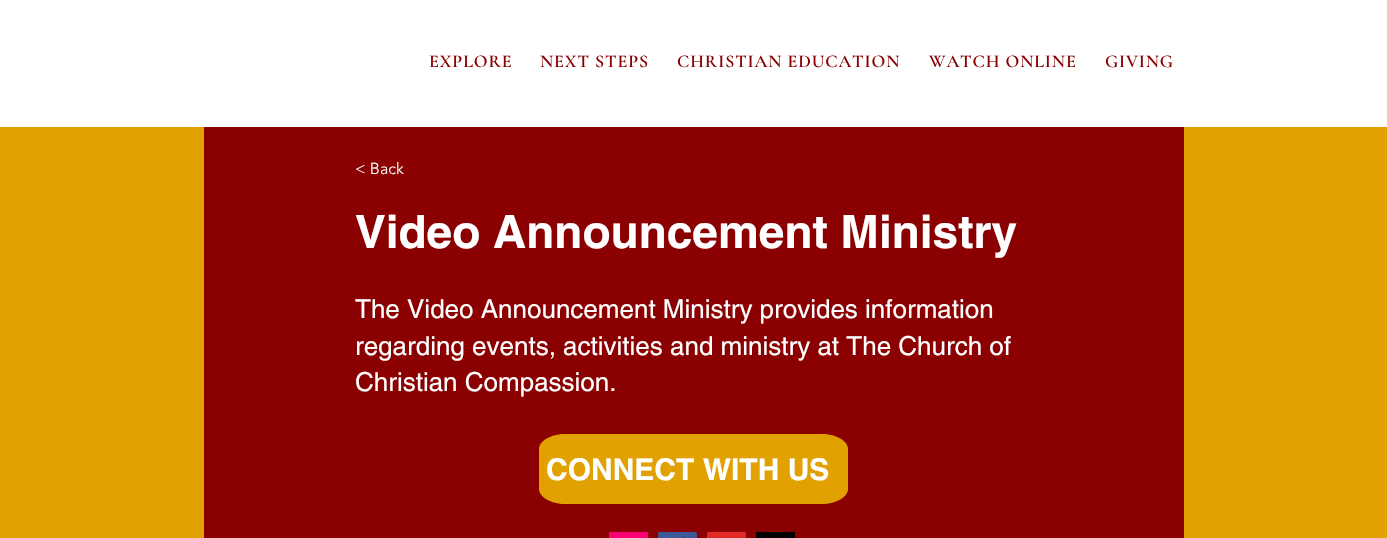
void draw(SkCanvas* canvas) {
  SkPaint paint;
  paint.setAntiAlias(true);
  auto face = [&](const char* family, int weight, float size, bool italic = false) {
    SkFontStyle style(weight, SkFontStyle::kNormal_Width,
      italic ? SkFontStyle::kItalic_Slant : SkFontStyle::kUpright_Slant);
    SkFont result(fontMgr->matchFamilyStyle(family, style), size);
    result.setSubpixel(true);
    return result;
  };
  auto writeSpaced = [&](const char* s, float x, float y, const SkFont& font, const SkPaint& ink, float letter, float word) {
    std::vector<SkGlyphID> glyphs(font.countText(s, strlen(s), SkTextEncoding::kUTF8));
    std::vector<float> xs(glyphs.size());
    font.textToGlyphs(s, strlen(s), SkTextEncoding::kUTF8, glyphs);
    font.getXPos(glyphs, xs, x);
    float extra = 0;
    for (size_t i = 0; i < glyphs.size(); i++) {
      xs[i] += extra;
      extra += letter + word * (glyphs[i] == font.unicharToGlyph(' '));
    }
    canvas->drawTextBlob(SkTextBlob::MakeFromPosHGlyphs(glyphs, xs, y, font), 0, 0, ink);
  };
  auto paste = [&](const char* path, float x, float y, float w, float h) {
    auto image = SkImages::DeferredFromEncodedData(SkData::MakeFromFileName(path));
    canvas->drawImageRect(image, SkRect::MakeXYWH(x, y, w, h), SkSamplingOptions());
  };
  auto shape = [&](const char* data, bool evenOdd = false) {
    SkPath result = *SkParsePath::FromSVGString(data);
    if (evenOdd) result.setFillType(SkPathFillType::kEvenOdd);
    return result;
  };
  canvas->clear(0xffffffff);
  paint.setColor(0xffe1a100);
  canvas->drawRect(SkRect::MakeXYWH(0, 127, 1387, 411), paint);
  paint.setColor(0xff8b0000);
  canvas->drawRect(SkRect::MakeXYWH(204, 127, 980, 411), paint);
  paint.setColor(0xffe1a100);
  canvas->drawPath(shape("M822 504H565C551 504 539 497 539 489V449C539 441 551 434 565 434H822C836 434 848 441 848 449V489C848 497 836 504 822 504Z"), paint);
  paint.setColor(0xfffb0074);
  canvas->drawRect(SkRect::MakeXYWH(609, 532, 39, 6), paint);
  paste("img/1.png", 658, 532, 39, 6);
  paste("img/2.png", 707, 532, 39, 6);
  paint.setColor(0xff010101);
  canvas->drawRect(SkRect::MakeXYWH(756, 532, 39, 6), paint);
  auto f0 = face("Cormorant Garamond", 600, 18);
  paint.setColor(0xff8b0000);
  {
    const struct { const char* s; float x, y; } items[] = {
      {"EXPLORE", 429, 67},
      {"NEXT STEPS", 540, 67},
      {"CHRISTIAN EDUCATION", 677, 67},
      {"WATCH ONLINE", 929, 67},
      {"GIVING", 1105, 67},
    };
    for (auto [s, x, y] : items) {
      writeSpaced(s, x, y, f0, paint, 0.9f, 0);
    }
  }
  auto f1 = face("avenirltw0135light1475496", 300, 16);
  paint.setColor(0xffffffff);
  canvas->drawString("< Back", 355, 174, f1, paint);
  auto f2 = face("helvetica", 700, 46);
  canvas->drawString("Video Announcement Ministry", 355, 248, f2, paint);
  auto f3 = face("helvetica", 400, 26);
  {
    const struct { const char* s; float x, y; } items[] = {
      {"The Video Announcement Ministry provides information", 355, 318},
      {"regarding events, activities and ministry at The Church of", 355, 355},
      {"Christian Compassion.", 355, 391},
    };
    for (auto [s, x, y] : items) {
      canvas->drawString(s, x, y, f3, paint);
    }
  }
  auto f4 = face("helvetica", 700, 30);
  canvas->drawString("CONNECT WITH US", 546, 480, f4, paint);
}
